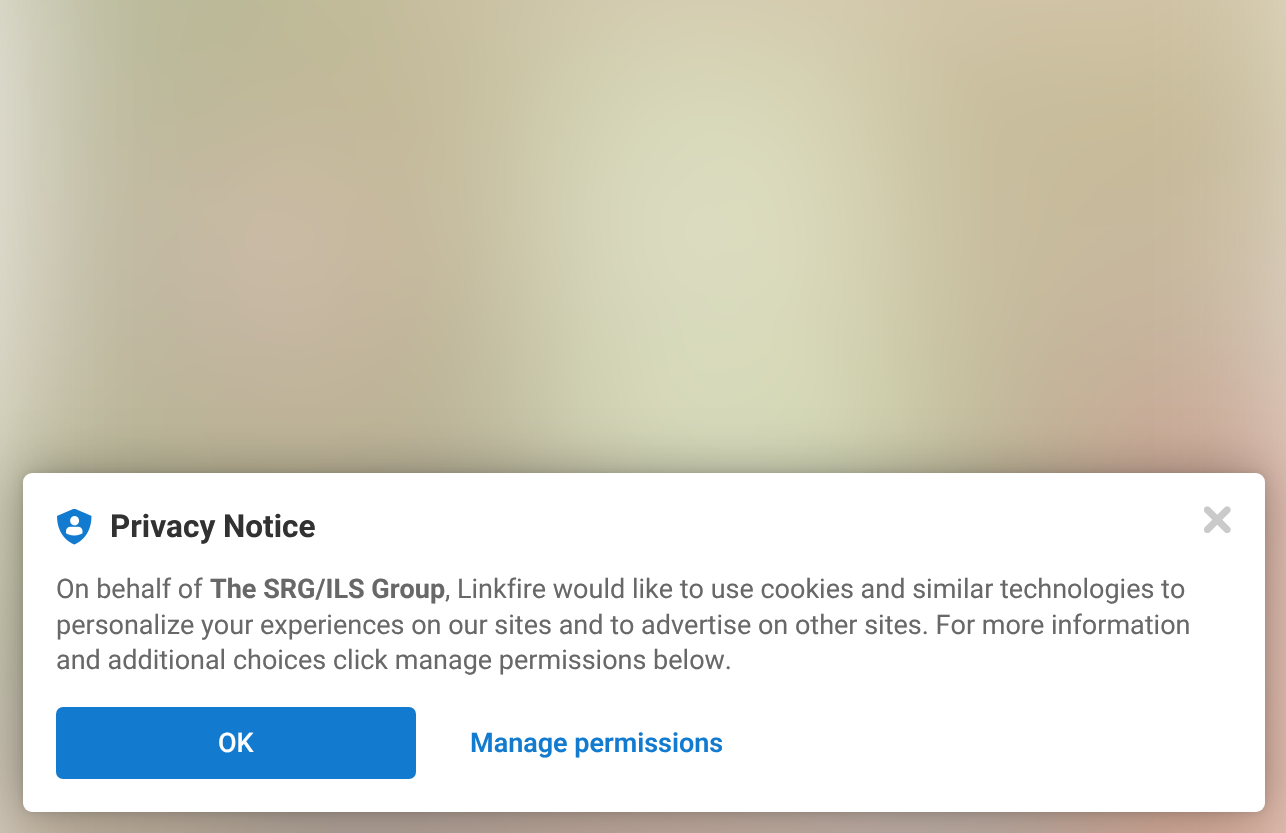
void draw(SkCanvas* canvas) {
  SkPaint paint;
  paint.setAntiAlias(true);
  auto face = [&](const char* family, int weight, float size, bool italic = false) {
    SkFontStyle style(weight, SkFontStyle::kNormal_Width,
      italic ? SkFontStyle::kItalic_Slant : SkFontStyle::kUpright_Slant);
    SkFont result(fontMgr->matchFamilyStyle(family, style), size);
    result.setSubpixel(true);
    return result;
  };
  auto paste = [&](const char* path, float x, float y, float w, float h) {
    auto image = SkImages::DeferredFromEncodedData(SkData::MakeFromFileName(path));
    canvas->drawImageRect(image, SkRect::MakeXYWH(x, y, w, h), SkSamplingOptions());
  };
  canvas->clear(0xffffffff);
  paste("img/1.png", 0, 0, 1286, 833);
  paint.setColor(0x1f000000);
  paint.setMaskFilter(SkMaskFilter::MakeBlur(kNormal_SkBlurStyle, 4.5f));
  canvas->drawRoundRect(SkRect::MakeXYWH(23, 473, 1242, 339), 9, 9, paint);
  paint.setMaskFilter(nullptr);
  paint.setColor(0x4d000000);
  paint.setMaskFilter(SkMaskFilter::MakeBlur(kNormal_SkBlurStyle, 27));
  canvas->drawRoundRect(SkRect::MakeXYWH(23, 473, 1242, 339), 9, 9, paint);
  paint.setMaskFilter(nullptr);
  paint.setColor(0xffffffff);
  canvas->drawRoundRect(SkRect::MakeXYWH(23, 473, 1242, 339), 9, 9, paint);
  paste("img/2.png", 57, 509, 35, 36);
  paint.setColor(0xff137bcf);
  canvas->drawRoundRect(SkRect::MakeXYWH(56, 707, 360, 72), 7, 7, paint);
  paste("img/3.png", 1204, 506, 27, 27);
  auto f0 = face("Roboto", 700, 31.5f);
  paint.setColor(0xff323232);
  canvas->drawString("Privacy Notice", 110, 537, f0, paint);
  auto f1 = face("Roboto", 400, 27);
  paint.setColor(0xff686868);
  canvas->drawString("On behalf of", 56, 598, f1, paint);
  auto f2 = face("Roboto", 700, 27);
  canvas->drawString("The SRG/ILS Group", 210, 598, f2, paint);
  {
    const struct { const char* s; float x, y; } items[] = {
      {", Linkfire would like to use cookies and similar technologies to", 445, 598},
      {"personalize your experiences on our sites and to advertise on other sites. For more information", 56, 634},
      {"and additional choices click manage permissions below.", 56, 669},
    };
    for (auto [s, x, y] : items) {
      canvas->drawString(s, x, y, f1, paint);
    }
  }
  auto f3 = face("Roboto", 500, 27);
  paint.setColor(0xffffffff);
  canvas->drawString("OK", 218, 752, f3, paint);
  auto f4 = face("Roboto", 600, 27);
  paint.setColor(0xff137bcf);
  canvas->drawString("Manage permissions", 470, 752, f4, paint);
}
